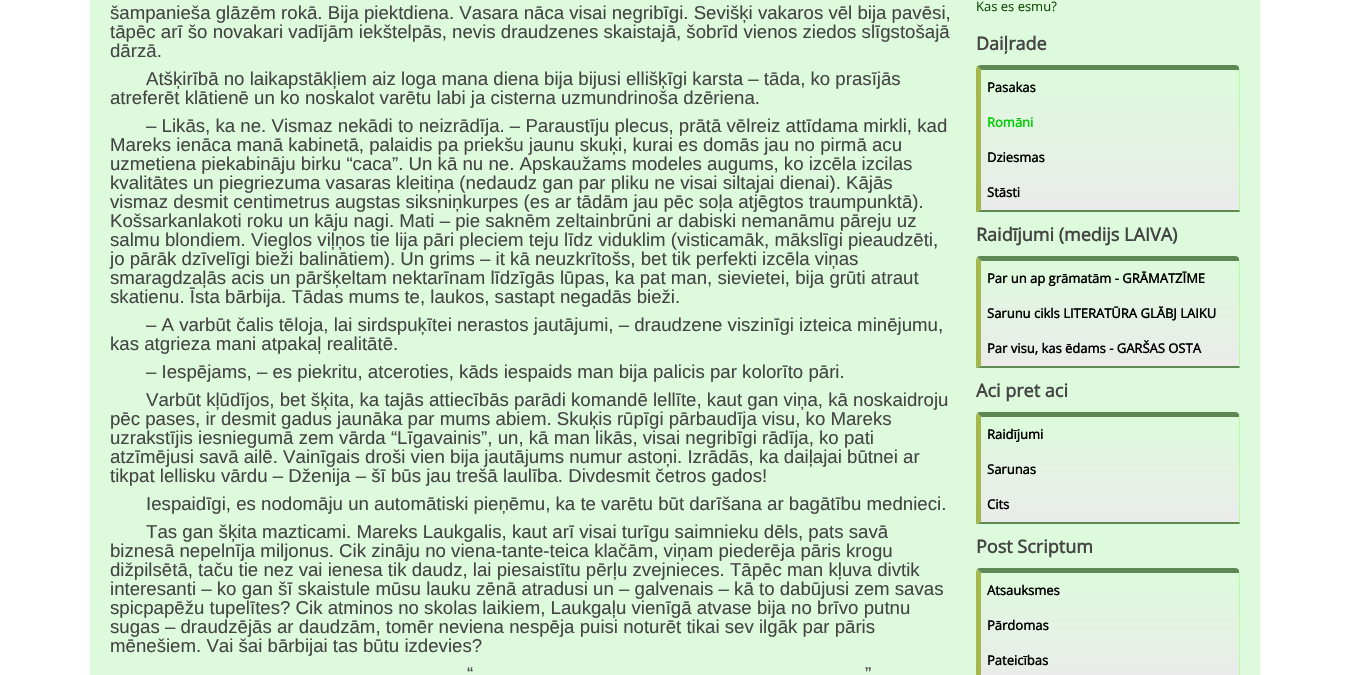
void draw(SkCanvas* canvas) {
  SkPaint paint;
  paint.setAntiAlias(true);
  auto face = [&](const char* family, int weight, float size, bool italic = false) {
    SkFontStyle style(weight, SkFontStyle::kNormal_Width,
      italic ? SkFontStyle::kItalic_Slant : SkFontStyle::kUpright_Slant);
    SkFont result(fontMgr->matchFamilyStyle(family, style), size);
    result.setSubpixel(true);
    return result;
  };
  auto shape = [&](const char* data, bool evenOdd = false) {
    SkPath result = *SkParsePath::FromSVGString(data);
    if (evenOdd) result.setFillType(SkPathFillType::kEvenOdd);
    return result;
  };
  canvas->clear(0xffffffff);
  paint.setColor(0xffddfadc);
  canvas->drawRect(SkRect::MakeXYWH(90, 0, 1170, 675), paint);
  {
    const SkColor colors[] = {0xffddfadc, 0xffebebeb};
    const float stops[] = {0, 1};
    const SkPoint ends[] = {{1110, 70}, {1110, 210}};
    paint.setShader(SkGradientShader::MakeLinear(ends, colors, stops, 2, SkTileMode::kClamp));
    paint.setAlpha(255);
  }
  canvas->drawRect(SkRect::MakeXYWH(981, 93, 258, 117), paint);
  paint.setShader(nullptr);
  paint.setColor(0xff5f8753);
  canvas->drawPath(shape("M981 65C980 65 978 66 977 66L981 70H1239V68C1239 66 1237 65 1235 65Z"), paint);
  paint.setColor(0xffb3ff9c);
  canvas->drawPath(shape("M1240 212V70L1239 68V70V210Z"), paint);
  paint.setColor(0xff608a54);
  canvas->drawPath(shape("M1240 212L1239 210H981L976 212Z"), paint);
  paint.setColor(0xffa6b84d);
  canvas->drawPath(shape("M981 70L977 66L976 69V212L981 210Z"), paint);
  {
    const SkColor colors[] = {0xffddfadc, 0xffebebeb};
    const float stops[] = {0, 1};
    const SkPoint ends[] = {{1110, 261}, {1110, 366}};
    paint.setShader(SkGradientShader::MakeLinear(ends, colors, stops, 2, SkTileMode::kClamp));
    paint.setAlpha(255);
  }
  canvas->drawRect(SkRect::MakeXYWH(981, 279, 258, 87), paint);
  paint.setShader(nullptr);
  paint.setColor(0xff5f8753);
  canvas->drawPath(shape("M981 256C980 256 978 256 977 257L981 261H1239V259C1239 257 1237 256 1235 256Z"), paint);
  paint.setColor(0xffb3ff9c);
  canvas->drawPath(shape("M1240 368V261L1239 259V261V366Z"), paint);
  paint.setColor(0xff608a54);
  canvas->drawPath(shape("M1240 368L1239 366H981L976 368Z"), paint);
  paint.setColor(0xffa6b84d);
  canvas->drawPath(shape("M981 261L977 257L976 260V368L981 366Z"), paint);
  {
    const SkColor colors[] = {0xffddfadc, 0xffebebeb};
    const float stops[] = {0, 1};
    const SkPoint ends[] = {{1110, 417}, {1110, 522}};
    paint.setShader(SkGradientShader::MakeLinear(ends, colors, stops, 2, SkTileMode::kClamp));
    paint.setAlpha(255);
  }
  canvas->drawRect(SkRect::MakeXYWH(981, 435, 258, 87), paint);
  paint.setShader(nullptr);
  paint.setColor(0xff5f8753);
  canvas->drawPath(shape("M981 412C980 412 978 412 977 413L981 417H1239V415C1239 413 1237 412 1235 412Z"), paint);
  paint.setColor(0xffb3ff9c);
  canvas->drawPath(shape("M1240 524V417L1239 415V417V522Z"), paint);
  paint.setColor(0xff608a54);
  canvas->drawPath(shape("M1240 524L1239 522H981L976 524Z"), paint);
  paint.setColor(0xffa6b84d);
  canvas->drawPath(shape("M981 417L977 413L976 416V524L981 522Z"), paint);
  {
    const SkColor colors[] = {0xffddfadc, 0xffebebeb};
    const float stops[] = {0, 1};
    const SkPoint ends[] = {{1110, 573}, {1110, 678}};
    paint.setShader(SkGradientShader::MakeLinear(ends, colors, stops, 2, SkTileMode::kClamp));
    paint.setAlpha(255);
  }
  canvas->drawRect(SkRect::MakeXYWH(981, 591, 258, 84), paint);
  paint.setShader(nullptr);
  paint.setColor(0xff5f8753);
  canvas->drawPath(shape("M981 568C980 568 978 568 977 569L981 573H1239V571C1239 569 1237 568 1235 568Z"), paint);
  paint.setColor(0xffb3ff9c);
  canvas->drawPath(shape("M1240 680V573L1239 571V573V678Z"), paint);
  paint.setColor(0xffa6b84d);
  canvas->drawPath(shape("M981 573L977 569L976 572V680L981 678Z"), paint);
  auto f0 = face("Liberation Sans", 400, 18.65f);
  paint.setColor(0xff444444);
  {
    const struct { const char* s; float x, y; } items[] = {
      {"šampanieša glāzēm rokā. Bija piektdiena. Vasara nāca visai negribīgi. Sevišķi vakaros vēl bija pavēsi,", 110, 19},
      {"tāpēc arī šo novakari vadījām iekštelpās, nevis draudzenes skaistajā, šobrīd vienos ziedos slīgstošajā", 110, 38},
      {"dārzā.", 110, 57},
      {"Atšķirībā no laikapstākļiem aiz loga mana diena bija bijusi ellišķīgi karsta – tāda, ko prasījās", 146, 85},
      {"atreferēt klātienē un ko noskalot varētu labi ja cisterna uzmundrinoša dzēriena.", 110, 104},
      {"– Likās, ka ne. Vismaz nekādi to neizrādīja. – Paraustīju plecus, prātā vēlreiz attīdama mirkli, kad", 146, 132},
      {"Mareks ienāca manā kabinetā, palaidis pa priekšu jaunu skuķi, kurai es domās jau no pirmā acu", 110, 151},
      {"uzmetiena piekabināju birku “caca”. Un kā nu ne. Apskaužams modeles augums, ko izcēla izcilas", 110, 170},
      {"kvalitātes un piegriezuma vasaras kleitiņa (nedaudz gan par pliku ne visai siltajai dienai). Kājās", 110, 189},
      {"vismaz desmit centimetrus augstas siksniņkurpes (es ar tādām jau pēc soļa atjēgtos traumpunktā).", 110, 208},
      {"Košsarkanlakoti roku un kāju nagi. Mati – pie saknēm zeltainbrūni ar dabiski nemanāmu pāreju uz", 110, 227},
      {"salmu blondiem. Vieglos viļņos tie lija pāri pleciem teju līdz viduklim (visticamāk, mākslīgi pieaudzēti,", 110, 246},
      {"jo pārāk dzīvelīgi bieži balinātiem). Un grims – it kā neuzkrītošs, bet tik perfekti izcēla viņas", 110, 265},
      {"smaragdzaļās acis un pāršķeltam nektarīnam līdzīgās lūpas, ka pat man, sievietei, bija grūti atraut", 110, 284},
      {"skatienu. Īsta bārbija. Tādas mums te, laukos, sastapt negadās bieži.", 110, 303},
      {"– A varbūt čalis tēloja, lai sirdspuķītei nerastos jautājumi, – draudzene viszinīgi izteica minējumu,", 146, 331},
      {"kas atgrieza mani atpakaļ realitātē.", 110, 350},
      {"– Iespējams, – es piekritu, atceroties, kāds iespaids man bija palicis par kolorīto pāri.", 146, 378},
      {"Varbūt kļūdījos, bet šķita, ka tajās attiecībās parādi komandē lellīte, kaut gan viņa, kā noskaidroju", 146, 406},
      {"pēc pases, ir desmit gadus jaunāka par mums abiem. Skuķis rūpīgi pārbaudīja visu, ko Mareks", 110, 425},
      {"uzrakstījis iesniegumā zem vārda “Līgavainis”, un, kā man likās, visai negribīgi rādīja, ko pati", 110, 444},
      {"atzīmējusi savā ailē. Vainīgais droši vien bija jautājums numur astoņi. Izrādās, ka daiļajai būtnei ar", 110, 463},
      {"tikpat lellisku vārdu – Dženija – šī būs jau trešā laulība. Divdesmit četros gados!", 110, 482},
      {"Iespaidīgi, es nodomāju un automātiski pieņēmu, ka te varētu būt darīšana ar bagātību mednieci.", 146, 510},
      {"Tas gan šķita mazticami. Mareks Laukgalis, kaut arī visai turīgu saimnieku dēls, pats savā", 146, 538},
      {"biznesā nepelnīja miljonus. Cik zināju no viena-tante-teica klačām, viņam piederēja pāris krogu", 110, 557},
      {"dižpilsētā, taču tie nez vai ienesa tik daudz, lai piesaistītu pērļu zvejnieces. Tāpēc man kļuva divtik", 110, 576},
      {"interesanti – ko gan šī skaistule mūsu lauku zēnā atradusi un – galvenais – kā to dabūjusi zem savas", 110, 595},
      {"spicpapēžu tupelītes? Cik atminos no skolas laikiem, Laukgaļu vienīgā atvase bija no brīvo putnu", 110, 614},
      {"sugas – draudzējās ar daudzām, tomēr neviena nespēja puisi noturēt tikai sev ilgāk par pāris", 110, 633},
      {"mēnešiem. Vai šai bārbijai tas būtu izdevies?", 110, 652},
      {"“", 467, 680},
      {"”", 865, 680},
    };
    for (auto [s, x, y] : items) {
      canvas->drawString(s, x, y, f0, paint);
    }
  }
  auto f1 = face("Open Sans", 400, 13);
  paint.setColor(0xff134a0a);
  canvas->drawString("Kas es esmu?", 976, 11, f1, paint);
  auto f2 = face("Open Sans", 700, 18);
  paint.setColor(0xff444444);
  canvas->drawString("Daiļrade", 976, 50, f2, paint);
  auto f3 = face("Open Sans", 700, 13);
  paint.setColor(0xff000000);
  canvas->drawString("Pasakas", 987, 92, f3, paint);
  paint.setColor(0xff00cc00);
  canvas->drawString("Romāni", 987, 127, f3, paint);
  paint.setColor(0xff000000);
  canvas->drawString("Dziesmas", 987, 162, f3, paint);
  canvas->drawString("Stāsti", 987, 197, f3, paint);
  paint.setColor(0xff444444);
  canvas->drawString("Raidījumi (medijs LAIVA)", 976, 241, f2, paint);
  paint.setColor(0xff000000);
  {
    const struct { const char* s; float x, y; } items[] = {
      {"Par un ap grāmatām - GRĀMATZĪME", 987, 283},
      {"Sarunu cikls LITERATŪRA GLĀBJ LAIKU", 987, 318},
      {"Par visu, kas ēdams - GARŠAS OSTA", 987, 353},
    };
    for (auto [s, x, y] : items) {
      canvas->drawString(s, x, y, f3, paint);
    }
  }
  paint.setColor(0xff444444);
  canvas->drawString("Aci pret aci", 976, 397, f2, paint);
  paint.setColor(0xff000000);
  {
    const struct { const char* s; float x, y; } items[] = {
      {"Raidījumi", 987, 439},
      {"Sarunas", 987, 474},
      {"Cits", 987, 509},
    };
    for (auto [s, x, y] : items) {
      canvas->drawString(s, x, y, f3, paint);
    }
  }
  paint.setColor(0xff444444);
  canvas->drawString("Post Scriptum", 976, 553, f2, paint);
  paint.setColor(0xff000000);
  {
    const struct { const char* s; float x, y; } items[] = {
      {"Atsauksmes", 987, 595},
      {"Pārdomas", 987, 630},
      {"Pateicības", 987, 665},
    };
    for (auto [s, x, y] : items) {
      canvas->drawString(s, x, y, f3, paint);
    }
  }
}
